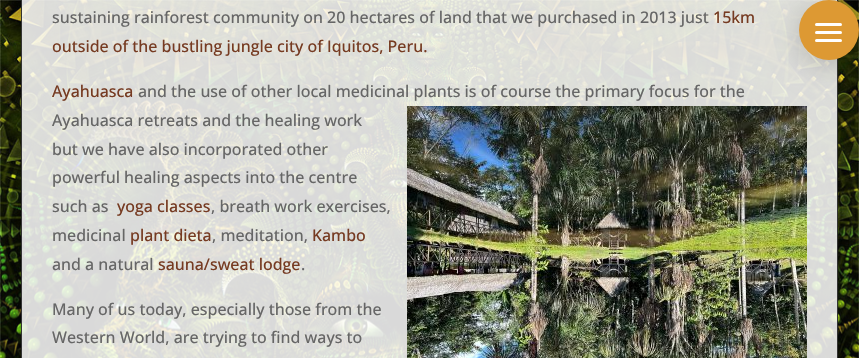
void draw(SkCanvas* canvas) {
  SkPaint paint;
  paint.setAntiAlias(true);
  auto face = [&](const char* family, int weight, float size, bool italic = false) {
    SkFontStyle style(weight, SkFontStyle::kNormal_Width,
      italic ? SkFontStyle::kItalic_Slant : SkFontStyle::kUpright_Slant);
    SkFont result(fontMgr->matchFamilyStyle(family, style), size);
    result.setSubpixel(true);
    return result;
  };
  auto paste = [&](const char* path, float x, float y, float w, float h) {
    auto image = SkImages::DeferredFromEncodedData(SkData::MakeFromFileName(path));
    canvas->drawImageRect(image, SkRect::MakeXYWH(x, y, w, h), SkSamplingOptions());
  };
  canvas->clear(0xffffffff);
  paste("img/1.png", 0, 0, 859, 358);
  paint.setStroke(true);
  paint.setStrokeWidth(1);
  paint.setColor(0xff333333);
  canvas->drawRect(SkRect::MakeXYWH(21.5f, -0.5f, 816, 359), paint);
  paste("img/2.png", 407, 106, 400, 252);
  paint.setStroke(false);
  paint.setColor(0x33000000);
  paint.setMaskFilter(SkMaskFilter::MakeBlur(kNormal_SkBlurStyle, 15));
  canvas->drawRoundRect(SkRect::MakeXYWH(799, 6, 60, 60), 30, 30, paint);
  paint.setMaskFilter(nullptr);
  paint.setColor(0xffdd9933);
  canvas->drawCircle(829, 30, 30, paint);
  paint.setColor(0xffffffff);
  canvas->drawRoundRect(SkRect::MakeXYWH(815, 31, 27, 3), 1.5f, 1.5f, paint);
  canvas->drawRoundRect(SkRect::MakeXYWH(815, 23, 27, 3), 1.5f, 1.5f, paint);
  canvas->drawRoundRect(SkRect::MakeXYWH(815, 39, 27, 3), 1.5f, 1.5f, paint);
  auto f0 = face("Open Sans", 500, 16);
  paint.setColor(0xff666666);
  canvas->drawString("sustaining rainforest community on 20 hectares of land that we purchased in 2013 just", 52, 23, f0, paint);
  paint.setColor(0xff763b22);
  {
    const struct { const char* s; float x, y; } items[] = {
      {"15km", 713, 23},
      {"outside of the bustling jungle city of Iquitos, Peru.", 52, 52},
      {"Ayahuasca", 52, 97},
    };
    for (auto [s, x, y] : items) {
      canvas->drawString(s, x, y, f0, paint);
    }
  }
  paint.setColor(0xff666666);
  {
    const struct { const char* s; float x, y; } items[] = {
      {"and the use of other local medicinal plants is of course the primary focus for the", 138, 97},
      {"Ayahuasca retreats and the healing work", 52, 126},
      {"but we have also incorporated other", 52, 155},
      {"powerful healing aspects into the centre", 52, 183},
      {"such as", 52, 212},
    };
    for (auto [s, x, y] : items) {
      canvas->drawString(s, x, y, f0, paint);
    }
  }
  paint.setColor(0xff763b22);
  canvas->drawString("yoga classes", 117, 212, f0, paint);
  paint.setColor(0xff666666);
  canvas->drawString(", breath work exercises,", 211, 212, f0, paint);
  canvas->drawString("medicinal", 52, 241, f0, paint);
  paint.setColor(0xff763b22);
  canvas->drawString("plant dieta", 130, 241, f0, paint);
  paint.setColor(0xff666666);
  canvas->drawString(", meditation,", 212, 241, f0, paint);
  paint.setColor(0xff763b22);
  canvas->drawString("Kambo", 312, 241, f0, paint);
  paint.setColor(0xff666666);
  canvas->drawString("and a natural", 52, 270, f0, paint);
  paint.setColor(0xff763b22);
  canvas->drawString("sauna/sweat lodge", 158, 270, f0, paint);
  paint.setColor(0xff666666);
  {
    const struct { const char* s; float x, y; } items[] = {
      {".", 301, 270},
      {"Many of us today, especially those from the", 52, 315},
      {"Western World, are trying to find ways to", 52, 343},
    };
    for (auto [s, x, y] : items) {
      canvas->drawString(s, x, y, f0, paint);
    }
  }
}
